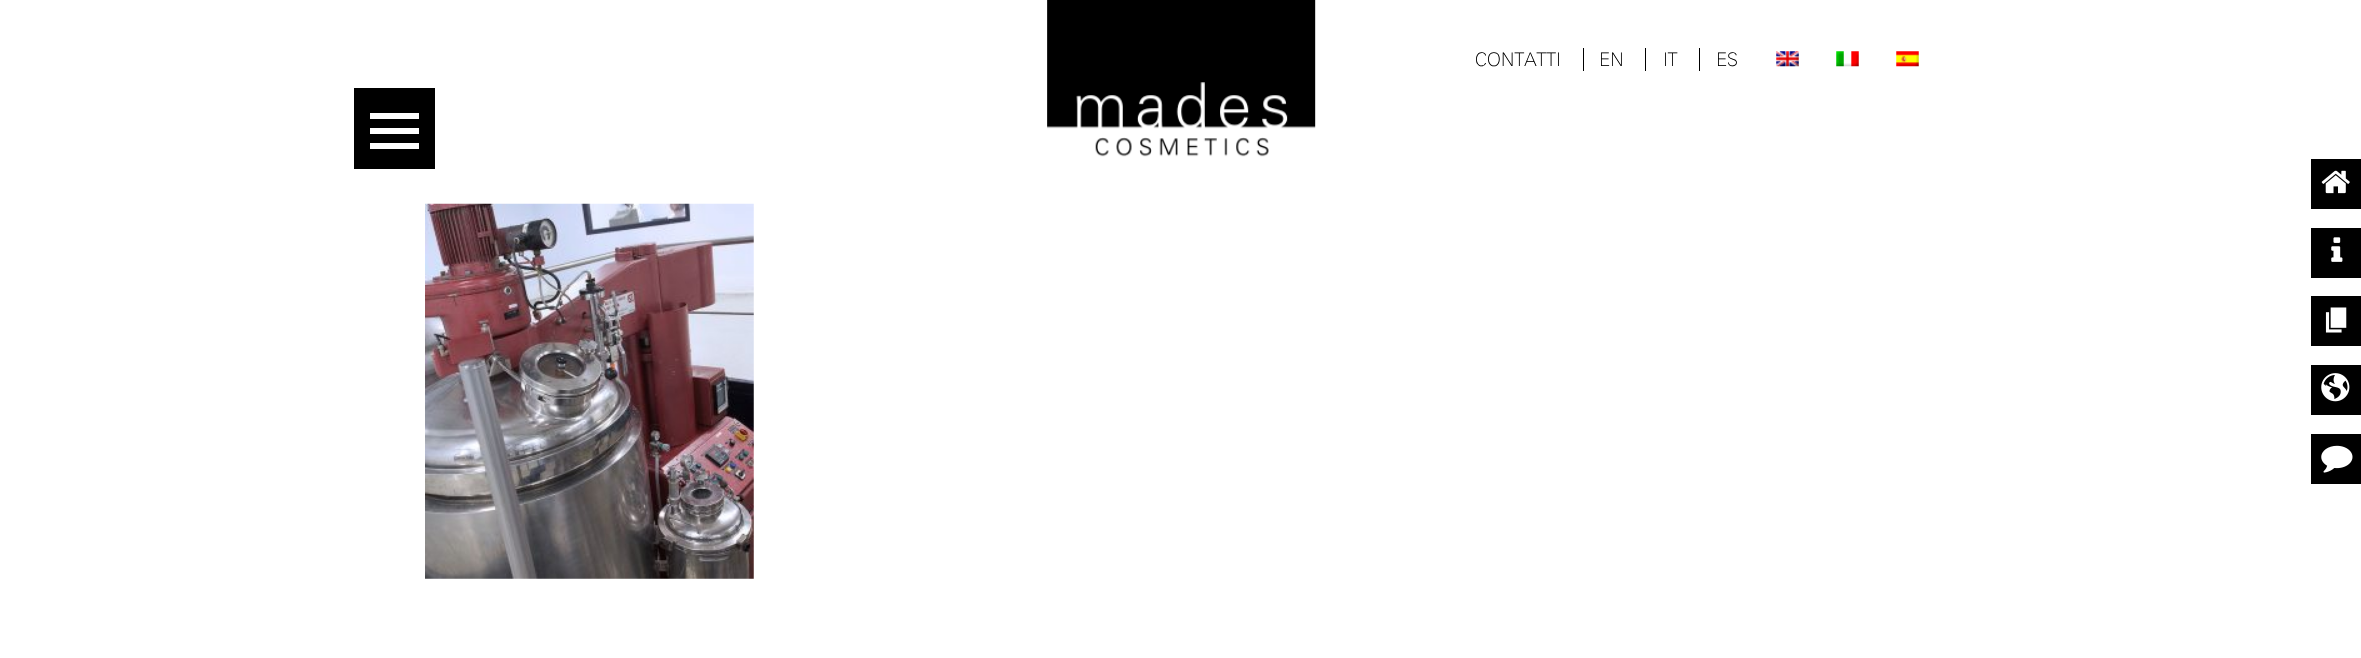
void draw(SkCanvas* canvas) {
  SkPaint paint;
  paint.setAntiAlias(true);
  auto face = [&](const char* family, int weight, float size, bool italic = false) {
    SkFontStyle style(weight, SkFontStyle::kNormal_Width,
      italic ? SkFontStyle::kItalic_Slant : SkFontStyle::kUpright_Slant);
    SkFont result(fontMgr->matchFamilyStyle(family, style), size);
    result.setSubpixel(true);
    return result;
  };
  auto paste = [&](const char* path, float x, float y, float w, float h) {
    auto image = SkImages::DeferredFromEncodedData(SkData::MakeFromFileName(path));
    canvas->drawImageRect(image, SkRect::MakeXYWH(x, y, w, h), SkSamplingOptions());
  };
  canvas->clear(0xffffffff);
  paste("img/1.png", 1047, 0, 269, 157);
  {
    const struct { float x, y, w, h; SkColor color; } items[] = {
      {1583, 48, 1, 23, 0xff000000},
      {1645, 48, 1, 23, 0xff000000},
      {1699, 48, 1, 23, 0xff000000},
    };
    for (auto [x, y, w, h, color] : items) {
      paint.setColor(color);
      canvas->drawRect(SkRect::MakeXYWH(x, y, w, h), paint);
    }
  }
  paste("img/2.png", 1776, 51, 23, 16);
  paste("img/3.png", 1836, 51, 23, 16);
  paste("img/4.png", 1896, 51, 23, 16);
  paste("img/5.png", 425, 203, 329, 376);
  {
    const struct { float x, y, w, h; SkColor color; } items[] = {
      {354, 88, 81, 81, 0xff000000},
      {370, 128, 49, 6, 0xffffffff},
      {370, 113, 49, 6, 0xffffffff},
      {370, 143, 49, 6, 0xffffffff},
      {2311, 159, 50, 50, 0xff000000},
    };
    for (auto [x, y, w, h, color] : items) {
      paint.setColor(color);
      canvas->drawRect(SkRect::MakeXYWH(x, y, w, h), paint);
    }
  }
  paste("img/6.png", 2321, 170, 29, 24);
  canvas->drawRect(SkRect::MakeXYWH(2311, 228, 50, 50), paint);
  paste("img/7.png", 2331, 237, 12, 25);
  canvas->drawRect(SkRect::MakeXYWH(2311, 296, 50, 50), paint);
  paste("img/8.png", 2325, 307, 22, 26);
  canvas->drawRect(SkRect::MakeXYWH(2311, 365, 50, 50), paint);
  paste("img/9.png", 2321, 373, 29, 29);
  canvas->drawRect(SkRect::MakeXYWH(2311, 434, 50, 50), paint);
  paste("img/10.png", 2321, 445, 32, 28);
  auto f0 = face("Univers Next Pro", 100, 18.75f);
  {
    const struct { const char* s; float x, y; } items[] = {
      {"CONTATTI", 1475, 66},
      {"EN", 1599, 66},
      {"IT", 1663, 66},
      {"ES", 1716, 66},
    };
    for (auto [s, x, y] : items) {
      canvas->drawString(s, x, y, f0, paint);
    }
  }
}
